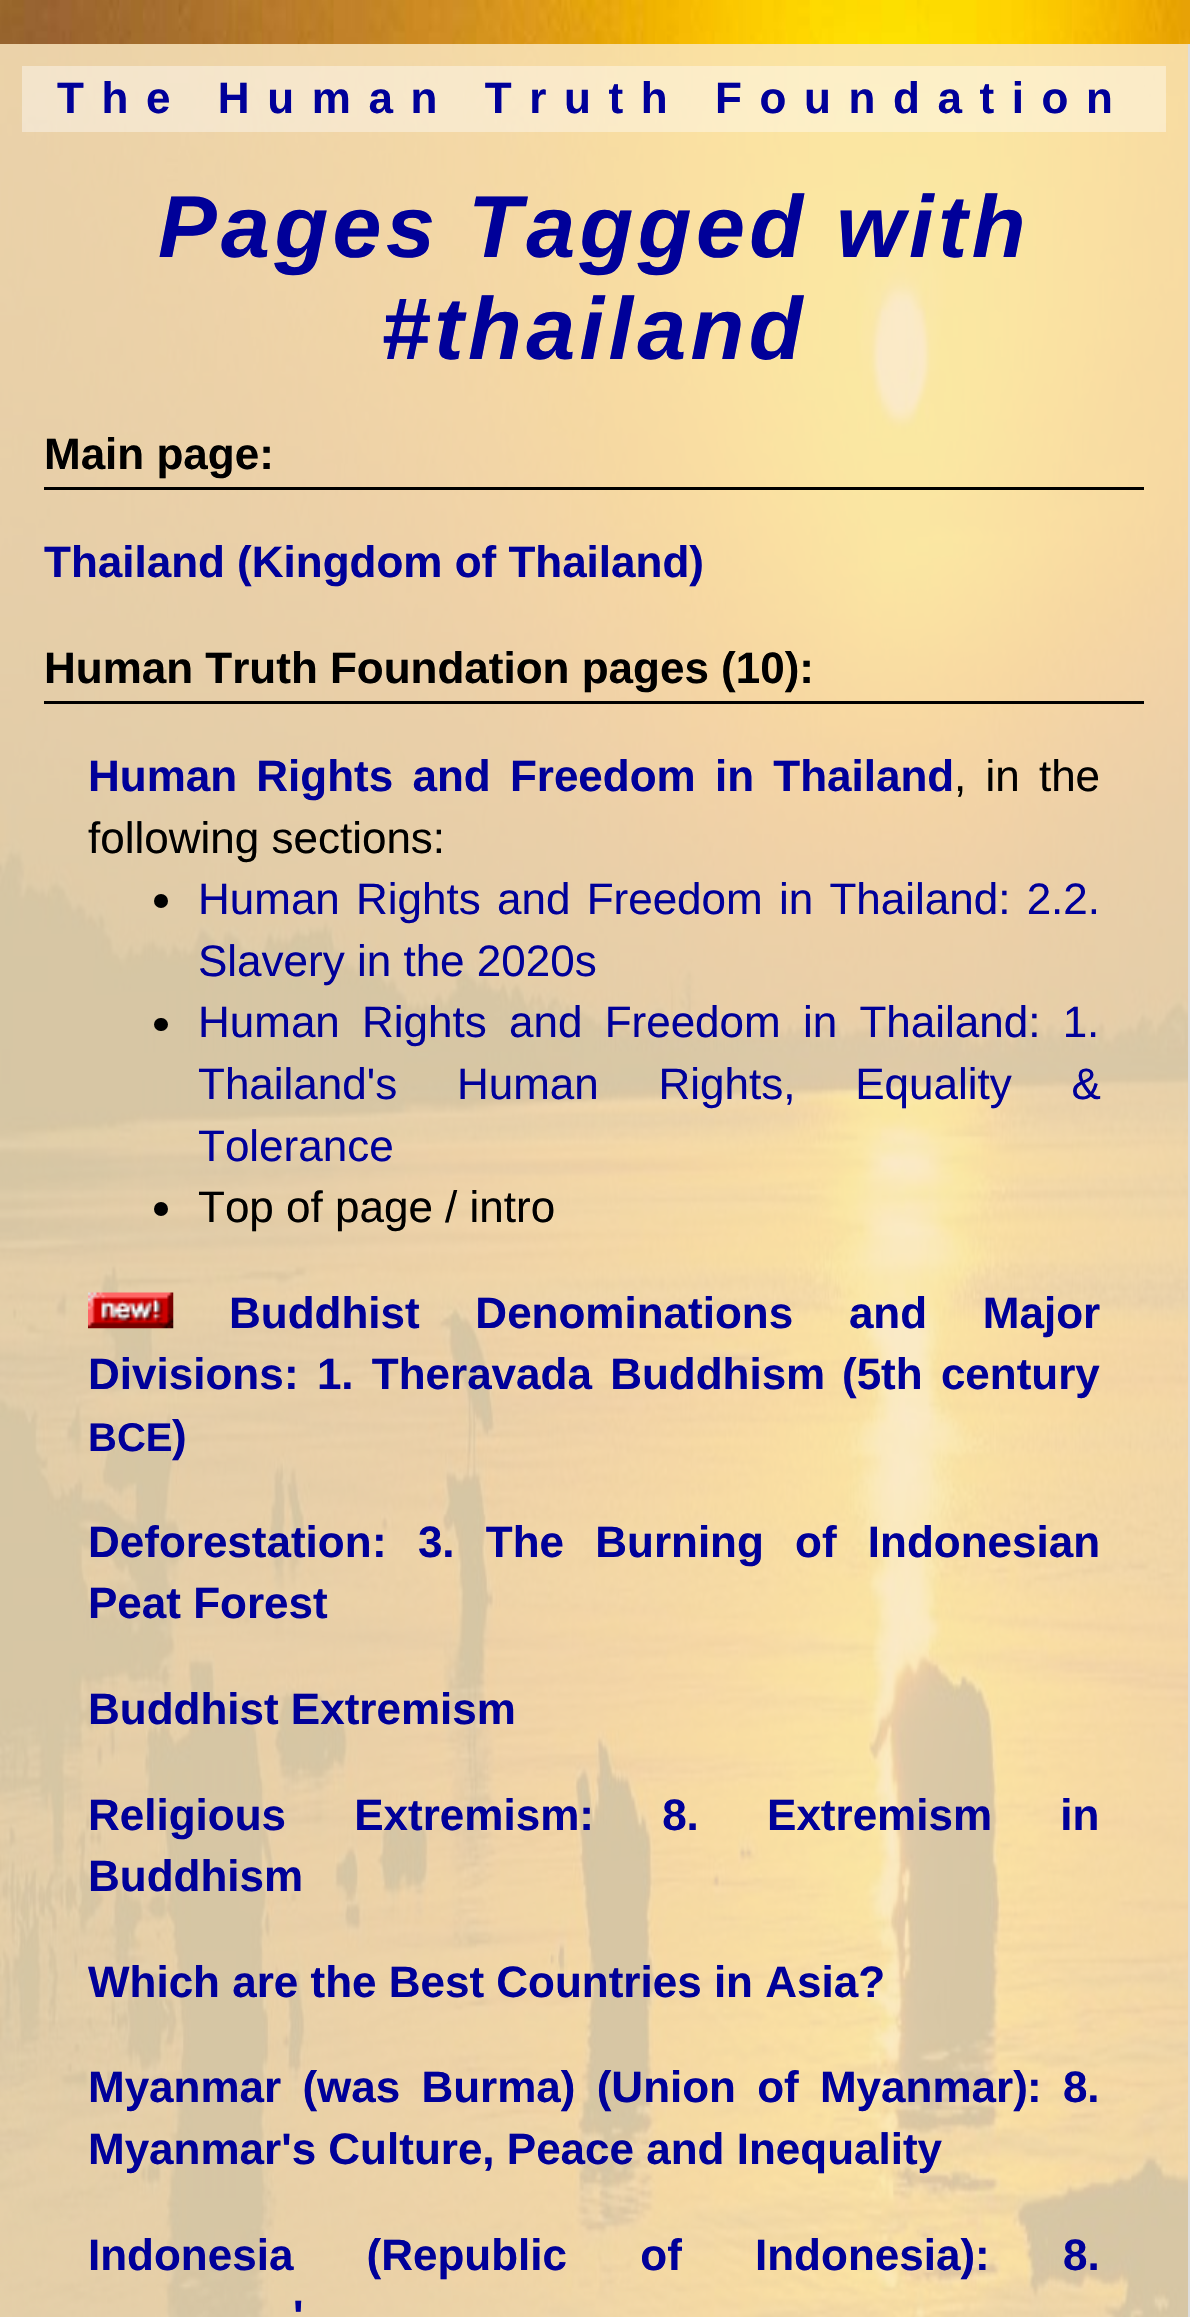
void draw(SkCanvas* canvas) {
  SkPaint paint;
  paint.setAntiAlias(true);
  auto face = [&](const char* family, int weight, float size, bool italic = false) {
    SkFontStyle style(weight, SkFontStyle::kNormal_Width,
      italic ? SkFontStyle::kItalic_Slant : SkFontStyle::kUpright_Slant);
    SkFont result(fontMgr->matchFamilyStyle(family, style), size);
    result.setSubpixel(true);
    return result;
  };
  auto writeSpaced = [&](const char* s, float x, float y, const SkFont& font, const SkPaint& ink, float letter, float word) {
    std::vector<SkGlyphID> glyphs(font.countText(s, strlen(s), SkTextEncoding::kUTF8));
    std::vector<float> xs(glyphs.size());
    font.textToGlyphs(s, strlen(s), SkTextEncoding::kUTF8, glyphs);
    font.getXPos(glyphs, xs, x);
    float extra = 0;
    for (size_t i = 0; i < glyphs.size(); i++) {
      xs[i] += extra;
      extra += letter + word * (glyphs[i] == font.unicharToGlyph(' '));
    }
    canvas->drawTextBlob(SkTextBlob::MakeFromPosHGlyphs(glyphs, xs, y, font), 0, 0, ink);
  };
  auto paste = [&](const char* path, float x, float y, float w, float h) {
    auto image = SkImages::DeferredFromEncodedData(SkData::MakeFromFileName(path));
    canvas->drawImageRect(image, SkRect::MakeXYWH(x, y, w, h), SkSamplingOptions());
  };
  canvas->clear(0xffffffff);
  paste("img/1.png", 0, 0, 1190, 2317);
  {
    const struct { float x, y, w, h; SkColor color; } items[] = {
      {1188, 44, 2, 2273, 0xffdddddd},
      {22, 66, 1144, 66, 0x66ffffff},
      {44, 487, 1100, 3, 0xff000000},
      {44, 701, 1100, 3, 0xff000000},
    };
    for (auto [x, y, w, h, color] : items) {
      paint.setColor(color);
      canvas->drawRect(SkRect::MakeXYWH(x, y, w, h), paint);
    }
  }
  canvas->drawCircle(161, 901, 7, paint);
  canvas->drawRoundRect(SkRect::MakeXYWH(154, 1018, 14, 13), 6.5f, 6.5f, paint);
  canvas->drawCircle(161, 1209, 7, paint);
  paste("img/2.png", 88, 1292, 86, 37);
  auto f0 = face("Liberation Sans", 700, 44);
  paint.setColor(0xff000099);
  writeSpaced("The Human Truth Foundation", 57, 113, f0, paint, 17.6f, 0);
  auto f1 = face("Liberation Sans", 700, 88, true);
  writeSpaced("Pages Tagged with", 158, 257, f1, paint, 4.4f, 0);
  writeSpaced("#thailand", 381, 359, f1, paint, 4.4f, 0);
  paint.setColor(0xff000000);
  canvas->drawString("Main page:", 44, 469, f0, paint);
  paint.setColor(0xff000099);
  canvas->drawString("Thailand (Kingdom of Thailand)", 44, 577, f0, paint);
  paint.setColor(0xff000000);
  canvas->drawString("Human Truth Foundation pages (10):", 44, 683, f0, paint);
  paint.setColor(0xff000099);
  writeSpaced("Human Rights and Freedom in Thailand", 88, 791, f0, paint, 0, 7);
  auto f2 = face("Liberation Sans", 400, 44);
  paint.setColor(0xff000000);
  writeSpaced(", in the", 954, 791, f2, paint, 0, 7);
  canvas->drawString("following sections:", 88, 853, f2, paint);
  paint.setColor(0xff000099);
  writeSpaced("Human Rights and Freedom in Thailand: 2.2.", 198, 914, f2, paint, 0, 4);
  canvas->drawString("Slavery in the 2020s", 198, 976, f2, paint);
  writeSpaced("Human Rights and Freedom in Thailand: 1.", 198, 1037, f2, paint, 0, 10);
  writeSpaced("Thailand's Human Rights, Equality &", 198, 1099, f2, paint, 0, 47.5f);
  canvas->drawString("Tolerance", 198, 1161, f2, paint);
  paint.setColor(0xff000000);
  canvas->drawString("Top of page / intro", 198, 1222, f2, paint);
  paint.setColor(0xff000099);
  writeSpaced("Buddhist Denominations and Major", 229, 1328, f0, paint, 0, 43.5f);
  canvas->drawString("Divisions", 88, 1389, f0, paint);
  writeSpaced(": 1. Theravada Buddhism", 284, 1389, f0, paint, 0, 6);
  writeSpaced("(5th century", 842, 1389, f0, paint, 0, 6);
  auto f3 = face("Liberation Sans", 700, 40);
  canvas->drawString("BCE", 88, 1451, f3, paint);
  canvas->drawString(")", 172, 1451, f0, paint);
  canvas->drawString("Deforestation", 88, 1557, f0, paint);
  writeSpaced(": 3. The Burning of Indonesian", 372, 1557, f0, paint, 0, 19);
  canvas->drawString("Peat Forest", 88, 1618, f0, paint);
  canvas->drawString("Buddhist Extremism", 88, 1724, f0, paint);
  writeSpaced("Religious Extremism: 8. Extremism in", 88, 1830, f0, paint, 0, 56);
  canvas->drawString("Buddhism", 88, 1891, f0, paint);
  canvas->drawString("Which are the Best Countries in Asia?", 88, 1997, f0, paint);
  writeSpaced("Myanmar (was Burma) (Union of Myanmar)", 88, 2102, f0, paint, 0, 9);
  writeSpaced(": 8.", 1027, 2102, f0, paint, 0, 9);
  canvas->drawString("Myanmar's Culture, Peace and Inequality", 88, 2164, f0, paint);
  writeSpaced("Indonesia (Republic of Indonesia): 8.", 88, 2270, f0, paint, 0, 61);
  canvas->drawString("'", 293, 2331, f0, paint);
}
